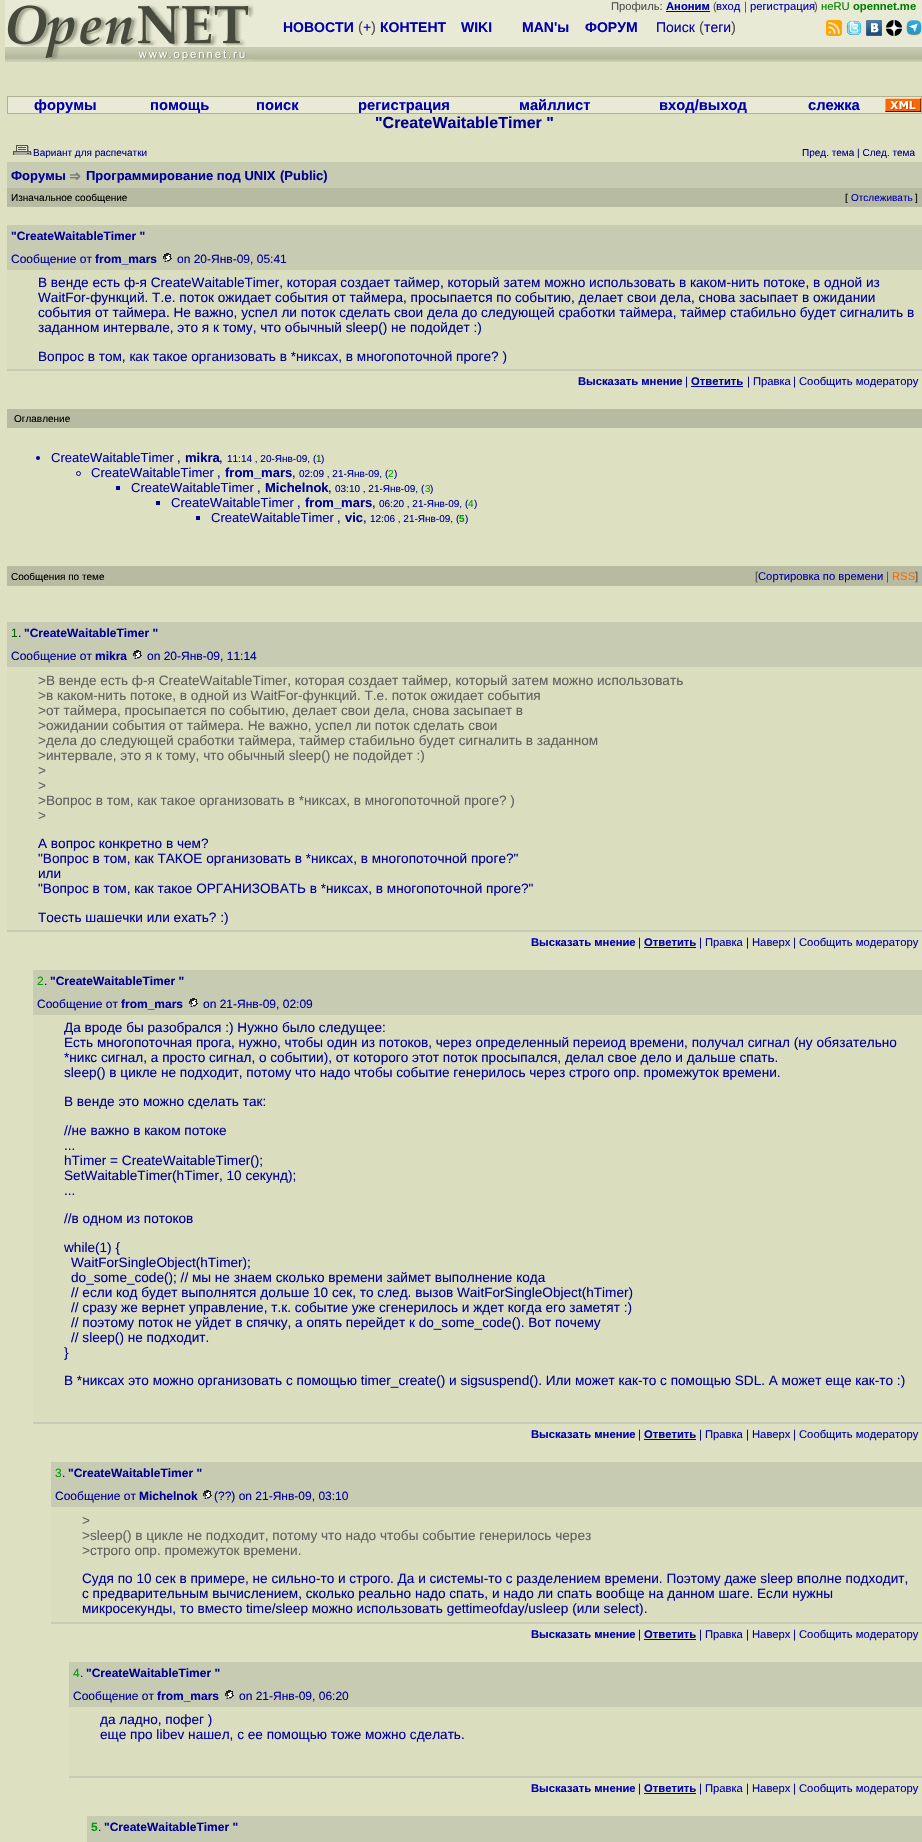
void draw(SkCanvas* canvas) {
  SkPaint paint;
  paint.setAntiAlias(true);
  auto face = [&](const char* family, int weight, float size, bool italic = false) {
    SkFontStyle style(weight, SkFontStyle::kNormal_Width,
      italic ? SkFontStyle::kItalic_Slant : SkFontStyle::kUpright_Slant);
    SkFont result(fontMgr->matchFamilyStyle(family, style), size);
    result.setSubpixel(true);
    return result;
  };
  auto paste = [&](const char* path, float x, float y, float w, float h) {
    auto image = SkImages::DeferredFromEncodedData(SkData::MakeFromFileName(path));
    canvas->drawImageRect(image, SkRect::MakeXYWH(x, y, w, h), SkSamplingOptions());
  };
  canvas->clear(0xffdde1c2);
  {
    const struct { float x, y, w, h; SkColor color; } items[] = {
      {5, 0, 917, 2, 0xffe9ead6},
      {5, 2, 917, 45, 0xffe9ead6},
      {666, 11, 44, 1, 0xff0000ad},
    };
    for (auto [x, y, w, h, color] : items) {
      paint.setColor(color);
      canvas->drawRect(SkRect::MakeXYWH(x, y, w, h), paint);
    }
  }
  paste("img/1.png", 5, 47, 258, 15);
  paste("img/2.png", 5, 4, 249, 57);
  paste("img/3.png", 280, 47, 459, 15);
  paste("img/4.png", 739, 47, 183, 15);
  paste("img/5.png", 826, 20, 16, 16);
  paste("img/6.png", 847, 21, 14, 14);
  paste("img/7.png", 866, 20, 16, 16);
  paste("img/8.png", 886, 20, 16, 16);
  paste("img/9.png", 906, 20, 16, 16);
  paste("img/10.png", 263, 47, 17, 15);
  paint.setColor(0xffb0b190);
  canvas->drawRect(SkRect::MakeXYWH(7, 96, 915, 18), paint);
  paint.setColor(0xffe9ead6);
  canvas->drawRect(SkRect::MakeXYWH(8, 97, 913, 16), paint);
  paste("img/11.png", 885, 98, 36, 14);
  paste("img/12.png", 13, 145, 19, 10);
  paint.setColor(0xffc7cbb1);
  canvas->drawRect(SkRect::MakeXYWH(7, 162, 915, 26), paint);
  paste("img/13.png", 70, 172, 11, 8);
  paint.setColor(0xffb7bba1);
  canvas->drawRect(SkRect::MakeXYWH(7, 188, 915, 19), paint);
  paint.setColor(0xffc7cbb1);
  canvas->drawRect(SkRect::MakeXYWH(7, 225, 915, 45), paint);
  paste("img/14.png", 163, 253, 9, 9);
  {
    const struct { float x, y, w, h; SkColor color; } items[] = {
      {7, 270, 915, 99, 0xffdadebf},
      {7, 369, 915, 2, 0xffc9cab6},
      {691, 386, 52, 1, 0xff0000ad},
      {7, 409, 915, 19, 0xffb7bba1},
    };
    for (auto [x, y, w, h, color] : items) {
      paint.setColor(color);
      canvas->drawRect(SkRect::MakeXYWH(x, y, w, h), paint);
    }
  }
  paint.setColor(0xff000099);
  canvas->drawCircle(38, 458, 2, paint);
  paint.setStroke(true);
  paint.setStrokeWidth(1);
  canvas->drawCircle(78.5f, 473.5f, 2, paint);
  paint.setStroke(false);
  {
    const struct { float x, y, w, h; SkColor color; } items[] = {
      {116, 486, 4, 4, 0xff000099},
      {156, 501, 4, 4, 0xff000099},
      {196, 516, 4, 4, 0xff000099},
      {7, 566, 915, 20, 0xffb7bba1},
      {7, 622, 915, 45, 0xffc7cbb1},
    };
    for (auto [x, y, w, h, color] : items) {
      paint.setColor(color);
      canvas->drawRect(SkRect::MakeXYWH(x, y, w, h), paint);
    }
  }
  paste("img/14.png", 133, 650, 9, 9);
  {
    const struct { float x, y, w, h; SkColor color; } items[] = {
      {7, 667, 915, 263, 0xffdadebf},
      {7, 930, 915, 2, 0xffc9cab6},
      {644, 947, 52, 1, 0xff0000ad},
      {33, 970, 889, 45, 0xffc7cbb1},
    };
    for (auto [x, y, w, h, color] : items) {
      paint.setColor(color);
      canvas->drawRect(SkRect::MakeXYWH(x, y, w, h), paint);
    }
  }
  paste("img/14.png", 189, 998, 9, 9);
  {
    const struct { float x, y, w, h; SkColor color; } items[] = {
      {33, 1015, 889, 407, 0xffdadebf},
      {33, 1422, 889, 2, 0xffc9cab6},
      {644, 1439, 52, 1, 0xff0000ad},
      {51, 1462, 871, 45, 0xffc7cbb1},
    };
    for (auto [x, y, w, h, color] : items) {
      paint.setColor(color);
      canvas->drawRect(SkRect::MakeXYWH(x, y, w, h), paint);
    }
  }
  paste("img/14.png", 203, 1490, 9, 9);
  {
    const struct { float x, y, w, h; SkColor color; } items[] = {
      {51, 1507, 871, 115, 0xffdadebf},
      {51, 1622, 871, 2, 0xffc9cab6},
      {644, 1639, 52, 1, 0xff0000ad},
      {69, 1662, 853, 45, 0xffc7cbb1},
    };
    for (auto [x, y, w, h, color] : items) {
      paint.setColor(color);
      canvas->drawRect(SkRect::MakeXYWH(x, y, w, h), paint);
    }
  }
  paste("img/14.png", 225, 1690, 9, 9);
  {
    const struct { float x, y, w, h; SkColor color; } items[] = {
      {69, 1707, 853, 69, 0xffdadebf},
      {69, 1776, 853, 2, 0xffc9cab6},
      {644, 1793, 52, 1, 0xff0000ad},
      {87, 1816, 835, 26, 0xffc7cbb1},
    };
    for (auto [x, y, w, h, color] : items) {
      paint.setColor(color);
      canvas->drawRect(SkRect::MakeXYWH(x, y, w, h), paint);
    }
  }
  auto f0 = face("Liberation Sans", 400, 11.25f);
  paint.setColor(0xff505050);
  canvas->drawString("Профиль:", 611, 10, f0, paint);
  auto f1 = face("Liberation Sans", 700, 11.25f);
  paint.setColor(0xff0000ad);
  canvas->drawString("Аноним", 666, 10, f1, paint);
  paint.setColor(0xff505050);
  canvas->drawString("(", 713, 10, f0, paint);
  paint.setColor(0xff0000ad);
  canvas->drawString("вход", 716, 10, f0, paint);
  paint.setColor(0xff505050);
  canvas->drawString("|", 744, 10, f0, paint);
  paint.setColor(0xff0000ad);
  canvas->drawString("регистрация", 750, 10, f0, paint);
  paint.setColor(0xff505050);
  canvas->drawString(")", 814, 10, f0, paint);
  paint.setColor(0xff008000);
  canvas->drawString("неRU", 821, 10, f0, paint);
  canvas->drawString("opennet.me", 853, 10, f1, paint);
  auto f2 = face("Liberation Sans", 700, 14);
  paint.setColor(0xff0000ad);
  canvas->drawString("НОВОСТИ", 283, 32, f2, paint);
  auto f3 = face("Liberation Sans", 400, 14.75f);
  paint.setColor(0xff505050);
  canvas->drawString("(", 358, 32, f3, paint);
  auto f4 = face("Liberation Sans", 400, 14);
  paint.setColor(0xff0000ad);
  canvas->drawString("+", 363, 32, f4, paint);
  paint.setColor(0xff505050);
  canvas->drawString(")", 371, 32, f3, paint);
  paint.setColor(0xff0000ad);
  {
    const struct { const char* s; float x, y; } items[] = {
      {"КОНТЕНТ", 380, 32},
      {"WIKI", 461, 32},
      {"MAN'ы", 522, 32},
      {"ФОРУМ", 585, 32},
    };
    for (auto [s, x, y] : items) {
      canvas->drawString(s, x, y, f2, paint);
    }
  }
  canvas->drawString("Поиск", 656, 32, f4, paint);
  paint.setColor(0xff505050);
  canvas->drawString("(", 699, 32, f3, paint);
  paint.setColor(0xff0000ad);
  canvas->drawString("теги", 704, 32, f4, paint);
  paint.setColor(0xff505050);
  canvas->drawString(")", 731, 32, f3, paint);
  auto f5 = face("Liberation Sans", 700, 14.75f);
  paint.setColor(0xff0000ad);
  {
    const struct { const char* s; float x, y; } items[] = {
      {"форумы", 34, 110},
      {"помощь", 150, 110},
      {"поиск", 256, 110},
      {"регистрация", 358, 110},
      {"майллист", 519, 110},
      {"вход/выход", 659, 110},
      {"слежка", 808, 110},
    };
    for (auto [s, x, y] : items) {
      canvas->drawString(s, x, y, f5, paint);
    }
  }
  auto f6 = face("Liberation Sans", 700, 16);
  paint.setColor(0xff000099);
  canvas->drawString("\"CreateWaitableTimer \"", 375, 128, f6, paint);
  auto f7 = face("Liberation Sans", 400, 10);
  canvas->drawString("Вариант для распечатки", 33, 156, f7, paint);
  canvas->drawString("Пред. тема | След. тема", 802, 156, f7, paint);
  auto f8 = face("Liberation Sans", 700, 13);
  {
    const struct { const char* s; float x, y; } items[] = {
      {"Форумы", 11, 180},
      {"Программирование под UNIX", 86, 180},
      {"(Public)", 280, 180},
    };
    for (auto [s, x, y] : items) {
      canvas->drawString(s, x, y, f8, paint);
    }
  }
  paint.setColor(0xff000000);
  canvas->drawString("Изначальное сообщение", 11, 201, f7, paint);
  canvas->drawString("[", 845, 201, f7, paint);
  paint.setColor(0xff0000ad);
  canvas->drawString("Отслеживать", 851, 201, f7, paint);
  paint.setColor(0xff000000);
  canvas->drawString("]", 915, 201, f7, paint);
  auto f9 = face("Liberation Sans", 700, 12);
  paint.setColor(0xff000099);
  canvas->drawString("\"CreateWaitableTimer \"", 11, 240, f9, paint);
  auto f10 = face("Liberation Sans", 400, 12);
  canvas->drawString("Сообщение от", 11, 263, f10, paint);
  canvas->drawString("from_mars", 95, 263, f9, paint);
  canvas->drawString("on 20-Янв-09, 05:41", 177, 263, f10, paint);
  auto f11 = face("Liberation Sans", 400, 13.6f);
  {
    const struct { const char* s; float x, y; } items[] = {
      {"В венде есть ф-я CreateWaitableTimer, которая создает таймер, который затем можно использовать в каком-нить потоке, в одной из", 38, 287},
      {"WaitFor-функций. Т.е. поток ожидает события от таймера, просыпается по событию, делает свои дела, снова засыпает в ожидании", 38, 302},
      {"события от таймера. Не важно, успел ли поток сделать свои дела до следующей сработки таймера, таймер стабильно будет сигналить в", 38, 317},
      {"заданном интервале, это я к тому, что обычный sleep() не подойдет :)", 38, 332},
      {"Вопрос в том, как такое организовать в *никсах, в многопоточной проге? )", 38, 361},
    };
    for (auto [s, x, y] : items) {
      canvas->drawString(s, x, y, f11, paint);
    }
  }
  paint.setColor(0xff0000ad);
  canvas->drawString("Высказать мнение", 578, 385, f1, paint);
  paint.setColor(0xff000099);
  canvas->drawString("|", 685, 385, f0, paint);
  paint.setColor(0xff0000ad);
  canvas->drawString("Ответить", 691, 385, f1, paint);
  paint.setColor(0xff000099);
  canvas->drawString("|", 747, 385, f0, paint);
  paint.setColor(0xff0000ad);
  canvas->drawString("Правка", 753, 385, f0, paint);
  paint.setColor(0xff000099);
  canvas->drawString("|", 793, 385, f0, paint);
  paint.setColor(0xff0000ad);
  canvas->drawString("Cообщить модератору", 799, 385, f0, paint);
  paint.setColor(0xff000000);
  canvas->drawString("Оглавление", 14, 422, f7, paint);
  auto f12 = face("Liberation Sans", 400, 13);
  paint.setColor(0xff0000ad);
  canvas->drawString("CreateWaitableTimer", 51, 462, f12, paint);
  paint.setColor(0xff000099);
  canvas->drawString("mikra", 185, 462, f8, paint);
  canvas->drawString("11:14 , 20-Янв-09, (", 227, 462, f7, paint);
  paint.setColor(0xff006000);
  canvas->drawString("1", 316, 462, f7, paint);
  paint.setColor(0xff000099);
  canvas->drawString(")", 321, 462, f7, paint);
  canvas->drawString(",", 177, 462, f12, paint);
  canvas->drawString(",", 219, 462, f12, paint);
  paint.setColor(0xff0000ad);
  canvas->drawString("CreateWaitableTimer", 91, 477, f12, paint);
  paint.setColor(0xff000099);
  canvas->drawString("from_mars", 225, 477, f8, paint);
  canvas->drawString("02:09 , 21-Янв-09, (", 299, 477, f7, paint);
  paint.setColor(0xff00a000);
  canvas->drawString("2", 388, 477, f7, paint);
  paint.setColor(0xff000099);
  canvas->drawString(")", 394, 477, f7, paint);
  canvas->drawString(",", 217, 477, f12, paint);
  canvas->drawString(",", 292, 477, f12, paint);
  paint.setColor(0xff0000ad);
  canvas->drawString("CreateWaitableTimer", 131, 492, f12, paint);
  paint.setColor(0xff000099);
  canvas->drawString("Michelnok", 265, 492, f8, paint);
  canvas->drawString("03:10 , 21-Янв-09, (", 335, 492, f7, paint);
  paint.setColor(0xff00a000);
  canvas->drawString("3", 425, 492, f7, paint);
  paint.setColor(0xff000099);
  canvas->drawString(")", 430, 492, f7, paint);
  canvas->drawString(",", 257, 492, f12, paint);
  canvas->drawString(",", 328, 492, f12, paint);
  paint.setColor(0xff0000ad);
  canvas->drawString("CreateWaitableTimer", 171, 507, f12, paint);
  paint.setColor(0xff000099);
  canvas->drawString("from_mars", 305, 507, f8, paint);
  canvas->drawString("06:20 , 21-Янв-09, (", 379, 507, f7, paint);
  paint.setColor(0xff00a000);
  canvas->drawString("4", 468, 507, f7, paint);
  paint.setColor(0xff000099);
  canvas->drawString(")", 474, 507, f7, paint);
  canvas->drawString(",", 297, 507, f12, paint);
  canvas->drawString(",", 372, 507, f12, paint);
  paint.setColor(0xff0000ad);
  canvas->drawString("CreateWaitableTimer", 211, 522, f12, paint);
  paint.setColor(0xff000099);
  canvas->drawString("vic", 345, 522, f8, paint);
  canvas->drawString("12:06 , 21-Янв-09, (", 370, 522, f7, paint);
  auto f13 = face("Liberation Sans", 700, 10);
  paint.setColor(0xff00a000);
  canvas->drawString("5", 459, 522, f13, paint);
  paint.setColor(0xff000099);
  canvas->drawString(")", 465, 522, f7, paint);
  canvas->drawString(",", 337, 522, f12, paint);
  canvas->drawString(",", 363, 522, f12, paint);
  paint.setColor(0xff000000);
  canvas->drawString("Сообщения по теме", 11, 580, f7, paint);
  paint.setColor(0xff505050);
  canvas->drawString("[", 755, 580, f0, paint);
  paint.setColor(0xff0000ad);
  canvas->drawString("Сортировка по времени", 758, 580, f0, paint);
  paint.setColor(0xff505050);
  canvas->drawString("|", 886, 580, f0, paint);
  paint.setColor(0xffff6600);
  canvas->drawString("RSS", 892, 580, f0, paint);
  paint.setColor(0xff505050);
  canvas->drawString("]", 915, 580, f0, paint);
  paint.setColor(0xff006000);
  canvas->drawString("1", 11, 637, f10, paint);
  paint.setColor(0xff000099);
  canvas->drawString(".", 18, 637, f10, paint);
  canvas->drawString("\"CreateWaitableTimer \"", 24, 637, f9, paint);
  canvas->drawString("Сообщение от", 11, 660, f10, paint);
  canvas->drawString("mikra", 95, 660, f9, paint);
  canvas->drawString("on 20-Янв-09, 11:14", 147, 660, f10, paint);
  paint.setColor(0xff606060);
  {
    const struct { const char* s; float x, y; } items[] = {
      {">В венде есть ф-я CreateWaitableTimer, которая создает таймер, который затем можно использовать", 38, 685},
      {">в каком-нить потоке, в одной из WaitFor-функций. Т.е. поток ожидает события", 38, 700},
      {">от таймера, просыпается по событию, делает свои дела, снова засыпает в", 38, 715},
      {">ожидании события от таймера. Не важно, успел ли поток сделать свои", 38, 730},
      {">дела до следующей сработки таймера, таймер стабильно будет сигналить в заданном", 38, 745},
      {">интервале, это я к тому, что обычный sleep() не подойдет :)", 38, 760},
      {">", 38, 775},
      {">", 38, 790},
      {">Вопрос в том, как такое организовать в *никсах, в многопоточной проге? )", 38, 805},
      {">", 38, 820},
    };
    for (auto [s, x, y] : items) {
      canvas->drawString(s, x, y, f11, paint);
    }
  }
  paint.setColor(0xff000099);
  {
    const struct { const char* s; float x, y; } items[] = {
      {"А вопрос конкретно в чем?", 38, 848},
      {"\"Вопрос в том, как ТАКОЕ организовать в *никсах, в многопоточной проге?\"", 38, 863},
      {"или", 38, 878},
      {"\"Вопрос в том, как такое ОРГАНИЗОВАТЬ в *никсах, в многопоточной проге?\"", 38, 893},
      {"Тоесть шашечки или ехать? :)", 38, 922},
    };
    for (auto [s, x, y] : items) {
      canvas->drawString(s, x, y, f11, paint);
    }
  }
  paint.setColor(0xff0000ad);
  canvas->drawString("Высказать мнение", 531, 946, f1, paint);
  paint.setColor(0xff000099);
  canvas->drawString("|", 638, 946, f0, paint);
  paint.setColor(0xff0000ad);
  canvas->drawString("Ответить", 644, 946, f1, paint);
  paint.setColor(0xff000099);
  canvas->drawString("|", 699, 946, f0, paint);
  paint.setColor(0xff0000ad);
  canvas->drawString("Правка", 705, 946, f0, paint);
  paint.setColor(0xff000099);
  canvas->drawString("|", 746, 946, f0, paint);
  paint.setColor(0xff0000ad);
  canvas->drawString("Наверх", 752, 946, f0, paint);
  paint.setColor(0xff000099);
  canvas->drawString("|", 793, 946, f0, paint);
  paint.setColor(0xff0000ad);
  canvas->drawString("Cообщить модератору", 799, 946, f0, paint);
  paint.setColor(0xff00a000);
  canvas->drawString("2", 37, 985, f10, paint);
  paint.setColor(0xff000099);
  canvas->drawString(".", 44, 985, f10, paint);
  canvas->drawString("\"CreateWaitableTimer \"", 50, 985, f9, paint);
  canvas->drawString("Сообщение от", 37, 1008, f10, paint);
  canvas->drawString("from_mars", 121, 1008, f9, paint);
  canvas->drawString("on 21-Янв-09, 02:09", 203, 1008, f10, paint);
  {
    const struct { const char* s; float x, y; } items[] = {
      {"Да вроде бы разобрался :) Нужно было следущее:", 64, 1032},
      {"Есть многопоточная прога, нужно, чтобы один из потоков, через определенный переиод времени, получал сигнал (ну обязательно", 64, 1047},
      {"*никс сигнал, а просто сигнал, о событии), от которого этот поток просыпался, делал свое дело и дальше спать.", 64, 1062},
      {"sleep() в цикле не подходит, потому что надо чтобы событие генерилось через строго опр. промежуток времени.", 64, 1077},
      {"В венде это можно сделать так:", 64, 1106},
      {"//не важно в каком потоке", 64, 1135},
      {"...", 64, 1150},
      {"hTimer = CreateWaitableTimer();", 64, 1165},
      {"SetWaitableTimer(hTimer, 10 секунд);", 64, 1180},
      {"...", 64, 1195},
      {"//в одном из потоков", 64, 1223},
      {"while(1) {", 64, 1252},
      {"WaitForSingleObject(hTimer);", 71, 1267},
      {"do_some_code(); // мы не знаем сколько времени займет выполнение кода", 71, 1282},
      {"// если код будет выполнятся дольше 10 сек, то след. вызов WaitForSingleObject(hTimer)", 71, 1297},
      {"// сразу же вернет управление, т.к. событие уже сгенерилось и ждет когда его заметят :)", 71, 1312},
      {"// поэтому поток не уйдет в спячку, а опять перейдет к do_some_code(). Вот почему", 71, 1327},
      {"// sleep() не подходит.", 71, 1342},
      {"}", 64, 1357},
      {"В *никсах это можно организовать с помощью timer_create() и sigsuspend(). Или может как-то с помощью SDL. А может еще как-то :)", 64, 1385},
    };
    for (auto [s, x, y] : items) {
      canvas->drawString(s, x, y, f11, paint);
    }
  }
  paint.setColor(0xff0000ad);
  canvas->drawString("Высказать мнение", 531, 1438, f1, paint);
  paint.setColor(0xff000099);
  canvas->drawString("|", 638, 1438, f0, paint);
  paint.setColor(0xff0000ad);
  canvas->drawString("Ответить", 644, 1438, f1, paint);
  paint.setColor(0xff000099);
  canvas->drawString("|", 699, 1438, f0, paint);
  paint.setColor(0xff0000ad);
  canvas->drawString("Правка", 705, 1438, f0, paint);
  paint.setColor(0xff000099);
  canvas->drawString("|", 746, 1438, f0, paint);
  paint.setColor(0xff0000ad);
  canvas->drawString("Наверх", 752, 1438, f0, paint);
  paint.setColor(0xff000099);
  canvas->drawString("|", 793, 1438, f0, paint);
  paint.setColor(0xff0000ad);
  canvas->drawString("Cообщить модератору", 799, 1438, f0, paint);
  paint.setColor(0xff00a000);
  canvas->drawString("3", 55, 1477, f10, paint);
  paint.setColor(0xff000099);
  canvas->drawString(".", 62, 1477, f10, paint);
  canvas->drawString("\"CreateWaitableTimer \"", 68, 1477, f9, paint);
  canvas->drawString("Сообщение от", 55, 1500, f10, paint);
  canvas->drawString("Michelnok", 139, 1500, f9, paint);
  canvas->drawString("(?\077) on 21-Янв-09, 03:10", 214, 1500, f10, paint);
  paint.setColor(0xff606060);
  {
    const struct { const char* s; float x, y; } items[] = {
      {">", 82, 1525},
      {">sleep() в цикле не подходит, потому что надо чтобы событие генерилось через", 82, 1540},
      {">строго опр. промежуток времени.", 82, 1555},
    };
    for (auto [s, x, y] : items) {
      canvas->drawString(s, x, y, f11, paint);
    }
  }
  paint.setColor(0xff000099);
  {
    const struct { const char* s; float x, y; } items[] = {
      {"Судя по 10 сек в примере, не сильно-то и строго. Да и системы-то с разделением времени. Поэтому даже sleep вполне подходит,", 82, 1583},
      {"с предварительным вычислением, сколько реально надо спать, и надо ли спать вообще на данном шаге. Если нужны", 82, 1598},
      {"микросекунды, то вместо time/sleep можно использовать gettimeofday/usleep (или select).", 82, 1613},
    };
    for (auto [s, x, y] : items) {
      canvas->drawString(s, x, y, f11, paint);
    }
  }
  paint.setColor(0xff0000ad);
  canvas->drawString("Высказать мнение", 531, 1638, f1, paint);
  paint.setColor(0xff000099);
  canvas->drawString("|", 638, 1638, f0, paint);
  paint.setColor(0xff0000ad);
  canvas->drawString("Ответить", 644, 1638, f1, paint);
  paint.setColor(0xff000099);
  canvas->drawString("|", 699, 1638, f0, paint);
  paint.setColor(0xff0000ad);
  canvas->drawString("Правка", 705, 1638, f0, paint);
  paint.setColor(0xff000099);
  canvas->drawString("|", 746, 1638, f0, paint);
  paint.setColor(0xff0000ad);
  canvas->drawString("Наверх", 752, 1638, f0, paint);
  paint.setColor(0xff000099);
  canvas->drawString("|", 793, 1638, f0, paint);
  paint.setColor(0xff0000ad);
  canvas->drawString("Cообщить модератору", 799, 1638, f0, paint);
  paint.setColor(0xff00a000);
  canvas->drawString("4", 73, 1677, f10, paint);
  paint.setColor(0xff000099);
  canvas->drawString(".", 80, 1677, f10, paint);
  canvas->drawString("\"CreateWaitableTimer \"", 86, 1677, f9, paint);
  canvas->drawString("Сообщение от", 73, 1700, f10, paint);
  canvas->drawString("from_mars", 157, 1700, f9, paint);
  canvas->drawString("on 21-Янв-09, 06:20", 239, 1700, f10, paint);
  canvas->drawString("да ладно, пофег )", 100, 1724, f11, paint);
  canvas->drawString("еще про libev нашел, с ее помощью тоже можно сделать.", 100, 1739, f11, paint);
  paint.setColor(0xff0000ad);
  canvas->drawString("Высказать мнение", 531, 1792, f1, paint);
  paint.setColor(0xff000099);
  canvas->drawString("|", 638, 1792, f0, paint);
  paint.setColor(0xff0000ad);
  canvas->drawString("Ответить", 644, 1792, f1, paint);
  paint.setColor(0xff000099);
  canvas->drawString("|", 699, 1792, f0, paint);
  paint.setColor(0xff0000ad);
  canvas->drawString("Правка", 705, 1792, f0, paint);
  paint.setColor(0xff000099);
  canvas->drawString("|", 746, 1792, f0, paint);
  paint.setColor(0xff0000ad);
  canvas->drawString("Наверх", 752, 1792, f0, paint);
  paint.setColor(0xff000099);
  canvas->drawString("|", 793, 1792, f0, paint);
  paint.setColor(0xff0000ad);
  canvas->drawString("Cообщить модератору", 799, 1792, f0, paint);
  paint.setColor(0xff00a000);
  canvas->drawString("5", 91, 1831, f9, paint);
  paint.setColor(0xff000099);
  canvas->drawString(".", 98, 1831, f10, paint);
  canvas->drawString("\"CreateWaitableTimer \"", 104, 1831, f9, paint);
}
